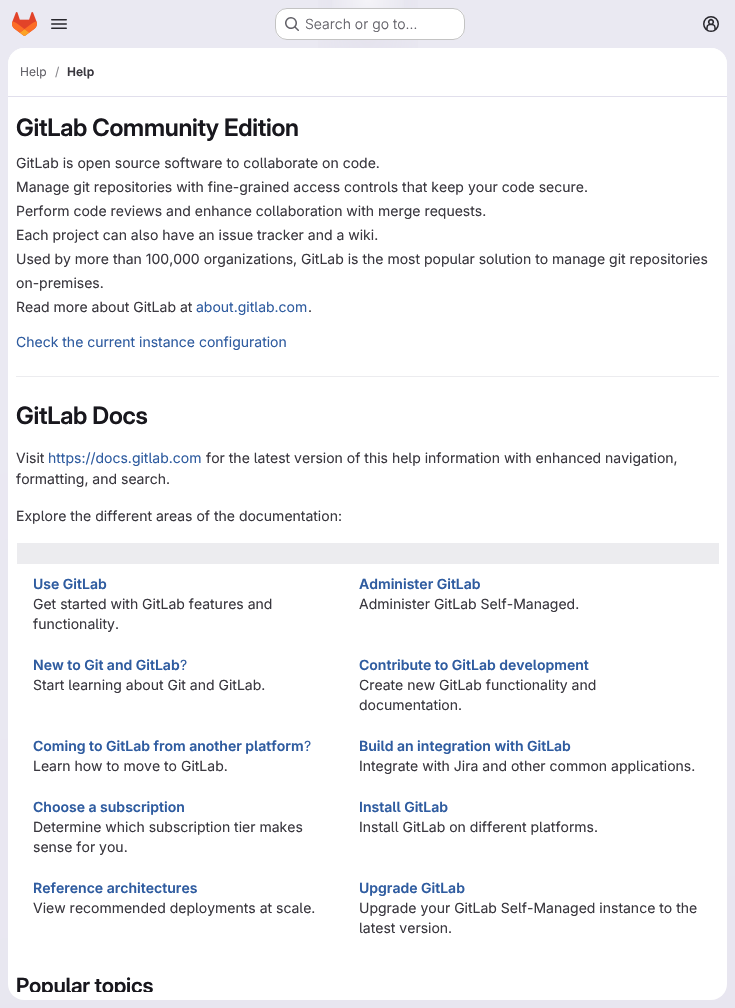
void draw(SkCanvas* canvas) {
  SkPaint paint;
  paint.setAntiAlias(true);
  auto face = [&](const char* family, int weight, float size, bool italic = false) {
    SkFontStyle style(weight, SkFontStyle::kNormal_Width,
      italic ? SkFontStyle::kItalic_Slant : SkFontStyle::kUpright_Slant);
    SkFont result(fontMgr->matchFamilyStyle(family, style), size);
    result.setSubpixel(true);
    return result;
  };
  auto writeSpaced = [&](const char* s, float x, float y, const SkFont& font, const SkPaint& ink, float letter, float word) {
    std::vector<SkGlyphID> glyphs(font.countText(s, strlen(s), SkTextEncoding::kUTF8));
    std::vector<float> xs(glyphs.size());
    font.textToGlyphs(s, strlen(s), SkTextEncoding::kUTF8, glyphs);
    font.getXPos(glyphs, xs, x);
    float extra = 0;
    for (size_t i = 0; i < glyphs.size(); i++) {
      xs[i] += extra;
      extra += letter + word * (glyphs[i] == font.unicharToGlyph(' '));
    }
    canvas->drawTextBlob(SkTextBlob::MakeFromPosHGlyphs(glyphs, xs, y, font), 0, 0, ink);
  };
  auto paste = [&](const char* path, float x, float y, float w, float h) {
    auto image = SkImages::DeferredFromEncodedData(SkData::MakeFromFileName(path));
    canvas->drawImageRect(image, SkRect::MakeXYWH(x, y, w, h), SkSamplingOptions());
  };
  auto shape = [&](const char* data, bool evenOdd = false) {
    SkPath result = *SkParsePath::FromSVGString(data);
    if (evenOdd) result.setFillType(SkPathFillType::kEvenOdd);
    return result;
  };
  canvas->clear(0xffffffff);
  {
    const SkColor colors[] = {0xffe8e6f0, 0xffeae9f2};
    const float stops[] = {0, 0.7f};
    const SkPoint ends[] = {{465, 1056}, {270, -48}};
    paint.setShader(SkGradientShader::MakeLinear(ends, colors, stops, 2, SkTileMode::kClamp));
    paint.setAlpha(255);
  }
  canvas->drawRect(SkRect::MakeXYWH(0, 0, 735, 1008), paint);
  {
    const SkColor colors[] = {0xffe4e2ed, 0x00e4e2ed};
    const float stops[] = {0, 0.19f};
    SkMatrix m = SkMatrix::Translate(368, 0).preScale(368, 1008);
    paint.setShader(SkGradientShader::MakeRadial({0, 0}, 1, colors, stops, 2, SkTileMode::kClamp, 0, &m));
    paint.setAlpha(255);
  }
  canvas->drawRect(SkRect::MakeXYWH(318, 0, 100, 48), paint);
  {
    const SkColor colors[] = {0xffe4e2ec, 0x00e4e2ec};
    const float stops[] = {0, 0.14f};
    SkMatrix m = SkMatrix::Translate(368, 0).preScale(368, 1008);
    paint.setShader(SkGradientShader::MakeRadial({0, 0}, 1, colors, stops, 2, SkTileMode::kClamp, 0, &m));
    paint.setAlpha(255);
  }
  canvas->drawRect(SkRect::MakeXYWH(346, 7, 44, 27), paint);
  {
    const SkColor colors[] = {0x99ffffff, 0x00ffffff};
    const float stops[] = {0, 0.04f};
    paint.setShader(SkGradientShader::MakeRadial({368, 0}, 1073, colors, stops, 2, SkTileMode::kClamp));
    paint.setAlpha(255);
  }
  canvas->drawRect(SkRect::MakeXYWH(332, 0, 72, 37), paint);
  paste("img/1.png", 12, 12, 25, 24);
  paste("img/2.png", 51, 19, 16, 10);
  paint.setShader(nullptr);
  paint.setColor(0xffffffff);
  canvas->drawRoundRect(SkRect::MakeXYWH(275, 8, 190, 32), 12, 12, paint);
  paint.setStroke(true);
  paint.setStrokeWidth(1);
  paint.setColor(0x3d050506);
  canvas->drawRoundRect(SkRect::MakeXYWH(275.5f, 8.5f, 189, 31), 11.5f, 11.5f, paint);
  paste("img/3.png", 285, 17, 14, 14);
  paste("img/4.png", 703, 16, 16, 16);
  paint.setStroke(false);
  paint.setColor(0xffffffff);
  canvas->drawRoundRect(SkRect::MakeXYWH(8, 48, 719, 952), 16, 16, paint);
  canvas->drawPath(shape("M24 48H711C720 48 727 55 727 64V97H8V64C8 55 15 48 24 48Z"), paint);
  {
    const struct { float x, y, w, h; SkColor color; } items[] = {
      {8, 96, 719, 1, 0xffe1dfec},
      {16, 376, 703, 1, 0xffececef},
      {17, 543, 702, 21, 0xffececef},
    };
    for (auto [x, y, w, h, color] : items) {
      paint.setColor(color);
      canvas->drawRect(SkRect::MakeXYWH(x, y, w, h), paint);
    }
  }
  auto f0 = face("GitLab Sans", 300, 14);
  paint.setColor(0xff626168);
  canvas->drawString("Search or go to…", 305, 29, f0, paint);
  auto f1 = face("GitLab Sans", 400, 12);
  canvas->drawString("Help", 20, 76, f1, paint);
  paint.setColor(0xff89888d);
  canvas->drawString("/", 55, 76, f1, paint);
  auto f2 = face("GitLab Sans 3", 600, 12);
  paint.setColor(0xff3a383f);
  canvas->drawString("Help", 67, 76, f2, paint);
  auto f3 = face("GitLab Sans", 600, 24);
  paint.setColor(0xff18171d);
  writeSpaced("GitLab Community Edition", 16, 136, f3, paint, -0.25f, 0);
  auto f4 = face("GitLab Sans", 400, 14);
  paint.setColor(0xff3a383f);
  {
    const struct { const char* s; float x, y; } items[] = {
      {"GitLab is open source software to collaborate on code.", 16, 168},
      {"Manage git repositories with fine-grained access controls that keep your code secure.", 16, 192},
      {"Perform code reviews and enhance collaboration with merge requests.", 16, 216},
      {"Each project can also have an issue tracker and a wiki.", 16, 240},
      {"Used by more than 100,000 organizations, GitLab is the most popular solution to manage git repositories", 16, 264},
      {"on-premises.", 16, 288},
      {"Read more about GitLab at", 16, 312},
    };
    for (auto [s, x, y] : items) {
      canvas->drawString(s, x, y, f4, paint);
    }
  }
  paint.setColor(0xff2f5ca0);
  canvas->drawString("about.gitlab.com", 196, 312, f4, paint);
  paint.setColor(0xff3a383f);
  canvas->drawString(".", 308, 312, f4, paint);
  paint.setColor(0xff2f5ca0);
  canvas->drawString("Check the current instance configuration", 16, 347, f4, paint);
  paint.setColor(0xff18171d);
  writeSpaced("GitLab Docs", 16, 424, f3, paint, -0.25f, 0);
  paint.setColor(0xff3a383f);
  canvas->drawString("Visit", 16, 463, f4, paint);
  paint.setColor(0xff2f5ca0);
  canvas->drawString("https://docs.gitlab.com", 48, 463, f4, paint);
  paint.setColor(0xff3a383f);
  {
    const struct { const char* s; float x, y; } items[] = {
      {"for the latest version of this help information with enhanced navigation,", 206, 463},
      {"formatting, and search.", 16, 484},
      {"Explore the different areas of the documentation:", 16, 521},
    };
    for (auto [s, x, y] : items) {
      canvas->drawString(s, x, y, f4, paint);
    }
  }
  auto f5 = face("GitLab Sans 3", 600, 14);
  paint.setColor(0xff2f5ca0);
  canvas->drawString("Use GitLab", 33, 589, f5, paint);
  paint.setColor(0xff3a383f);
  canvas->drawString("Get started with GitLab features and", 33, 609, f4, paint);
  canvas->drawString("functionality.", 33, 629, f4, paint);
  paint.setColor(0xff2f5ca0);
  canvas->drawString("Administer GitLab", 359, 589, f5, paint);
  paint.setColor(0xff3a383f);
  canvas->drawString("Administer GitLab Self-Managed.", 359, 609, f4, paint);
  paint.setColor(0xff2f5ca0);
  canvas->drawString("New to Git and GitLab", 33, 670, f5, paint);
  canvas->drawString("?", 180, 670, f4, paint);
  paint.setColor(0xff3a383f);
  canvas->drawString("Start learning about Git and GitLab.", 33, 690, f4, paint);
  paint.setColor(0xff2f5ca0);
  canvas->drawString("Contribute to GitLab development", 359, 670, f5, paint);
  paint.setColor(0xff3a383f);
  canvas->drawString("Create new GitLab functionality and", 359, 690, f4, paint);
  canvas->drawString("documentation.", 359, 710, f4, paint);
  paint.setColor(0xff2f5ca0);
  canvas->drawString("Coming to GitLab from another platform", 33, 751, f5, paint);
  canvas->drawString("?", 304, 751, f4, paint);
  paint.setColor(0xff3a383f);
  canvas->drawString("Learn how to move to GitLab.", 33, 771, f4, paint);
  paint.setColor(0xff2f5ca0);
  canvas->drawString("Build an integration with GitLab", 359, 751, f5, paint);
  paint.setColor(0xff3a383f);
  canvas->drawString("Integrate with Jira and other common applications.", 359, 771, f4, paint);
  paint.setColor(0xff2f5ca0);
  canvas->drawString("Choose a subscription", 33, 812, f5, paint);
  paint.setColor(0xff3a383f);
  canvas->drawString("Determine which subscription tier makes", 33, 832, f4, paint);
  canvas->drawString("sense for you.", 33, 852, f4, paint);
  paint.setColor(0xff2f5ca0);
  canvas->drawString("Install GitLab", 359, 812, f5, paint);
  paint.setColor(0xff3a383f);
  canvas->drawString("Install GitLab on different platforms.", 359, 832, f4, paint);
  paint.setColor(0xff2f5ca0);
  canvas->drawString("Reference architectures", 33, 893, f5, paint);
  paint.setColor(0xff3a383f);
  canvas->drawString("View recommended deployments at scale.", 33, 913, f4, paint);
  paint.setColor(0xff2f5ca0);
  canvas->drawString("Upgrade GitLab", 359, 893, f5, paint);
  paint.setColor(0xff3a383f);
  canvas->drawString("Upgrade your GitLab Self-Managed instance to the", 359, 913, f4, paint);
  canvas->drawString("latest version.", 359, 933, f4, paint);
  canvas->save();
  canvas->clipRect(SkRect::MakeXYWH(8, 97, 719, 895));
  auto f6 = face("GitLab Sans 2", 600, 21);
  paint.setColor(0xff18171d);
  writeSpaced("Popular topics", 16, 993, f6, paint, -0.25f, 0);
  canvas->restore();
}
